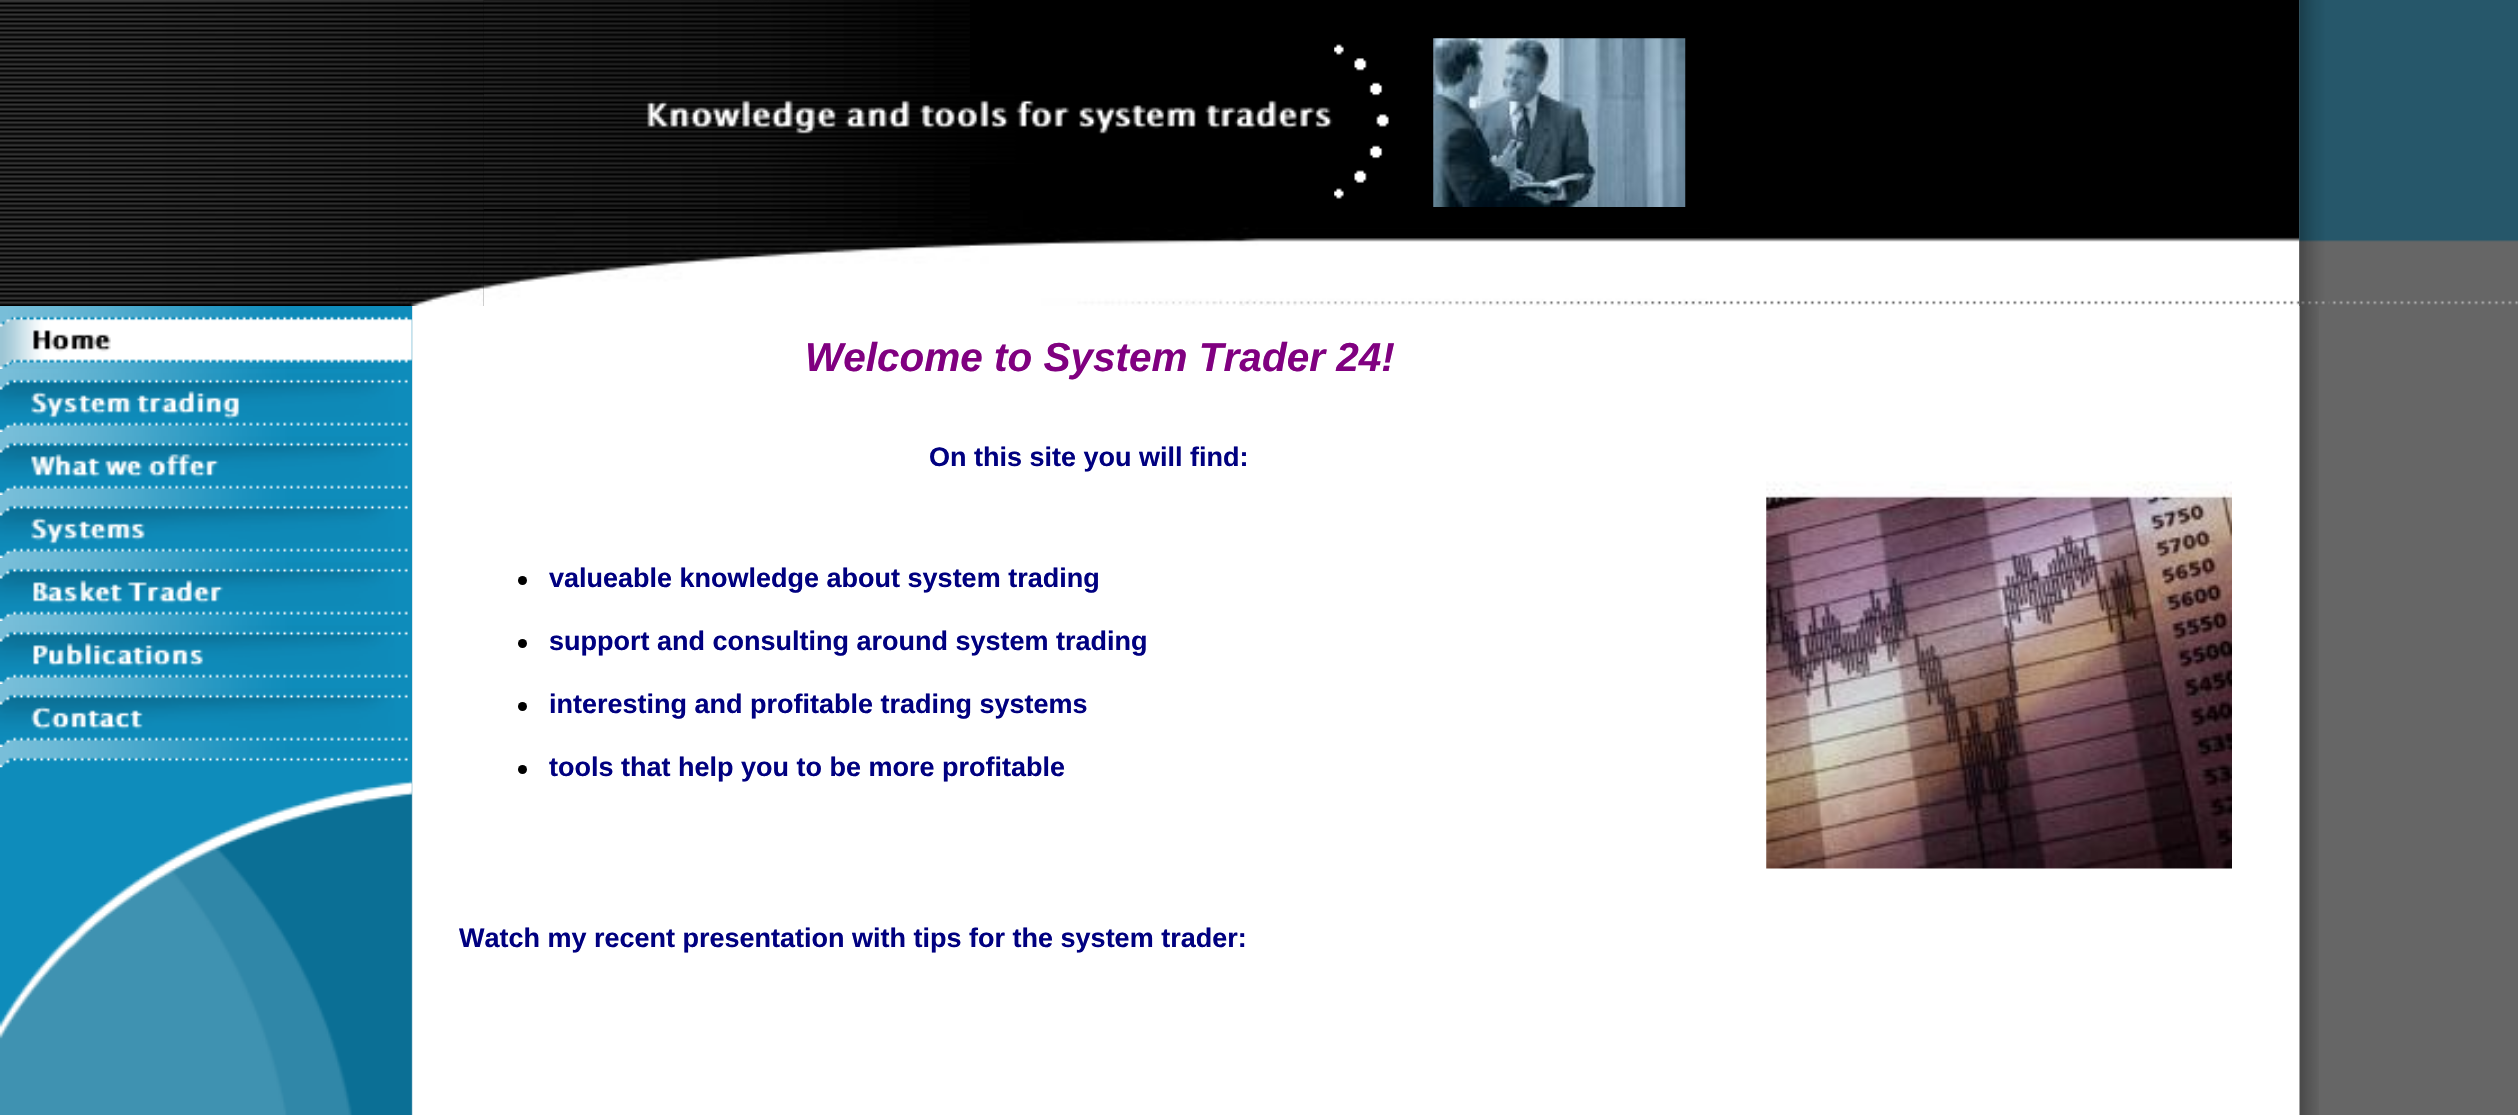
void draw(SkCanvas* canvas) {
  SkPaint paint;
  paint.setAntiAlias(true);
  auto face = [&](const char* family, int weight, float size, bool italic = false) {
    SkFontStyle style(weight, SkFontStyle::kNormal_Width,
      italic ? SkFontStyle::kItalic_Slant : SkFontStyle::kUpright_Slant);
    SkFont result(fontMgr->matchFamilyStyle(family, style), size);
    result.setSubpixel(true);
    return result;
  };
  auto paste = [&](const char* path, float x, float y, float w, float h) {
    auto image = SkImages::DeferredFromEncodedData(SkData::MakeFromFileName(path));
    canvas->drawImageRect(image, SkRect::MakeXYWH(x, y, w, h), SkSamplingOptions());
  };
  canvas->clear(0xff666666);
  paint.setColor(0xffffffff);
  canvas->drawRect(SkRect::MakeXYWH(413, 0, 1887, 1115), paint);
  paste("img/1.png", 411, 306, 2, 809);
  paste("img/2.png", 1710, 0, 590, 306);
  paint.setColor(0xff000000);
  canvas->drawRect(SkRect::MakeXYWH(483, 0, 1227, 306), paint);
  paste("img/4.png", 483, 0, 487, 210);
  paste("img/3.png", 0, 0, 484, 306);
  paste("img/5.png", 484, 94, 849, 71);
  paste("img/6.png", 1334, 44, 100, 166);
  paste("img/7.png", 1433, 38, 253, 169);
  paste("img/8.png", 483, 209, 1227, 97);
  paint.setColor(0xff0e8cbb);
  canvas->drawRect(SkRect::MakeXYWH(0, 306, 412, 464), paint);
  paste("img/9.png", 0, 306, 412, 63);
  paste("img/10.png", 0, 369, 408, 63);
  paste("img/11.png", 0, 432, 408, 63);
  paste("img/12.png", 0, 495, 408, 63);
  paste("img/13.png", 0, 558, 408, 63);
  paste("img/14.png", 0, 621, 408, 63);
  paste("img/15.png", 0, 684, 408, 63);
  paste("img/16.png", 0, 747, 408, 21);
  paste("img/17.png", 0, 770, 412, 345);
  paint.setColor(0xff000000);
  canvas->drawCircle(522.5f, 580.5f, 4.5f, paint);
  canvas->drawCircle(522.5f, 643.5f, 4.5f, paint);
  canvas->drawCircle(522.5f, 706.5f, 4.5f, paint);
  canvas->drawCircle(522.5f, 769.5f, 4.5f, paint);
  paste("img/18.png", 1766, 481, 466, 388);
  paste("img/19.png", 2299, 0, 20, 1115);
  paste("img/20.png", 2299, 0, 219, 306);
  paste("img/21.png", 2299, 0, 30, 306);
  auto f0 = face("Liberation Sans", 700, 40.5f, true);
  paint.setColor(0xff800080);
  canvas->drawString("Welcome to System Trader 24!", 805, 371, f0, paint);
  auto f1 = face("Liberation Sans", 700, 27);
  paint.setColor(0xff000080);
  {
    const struct { const char* s; float x, y; } items[] = {
      {"On this site you will find:", 929, 466},
      {"valueable knowledge about system trading", 549, 587},
      {"support and consulting around system trading", 549, 650},
      {"interesting and profitable trading systems", 549, 713},
      {"tools that help you to be more profitable", 549, 776},
      {"Watch my recent presentation with tips for the system trader:", 459, 947},
    };
    for (auto [s, x, y] : items) {
      canvas->drawString(s, x, y, f1, paint);
    }
  }
}
